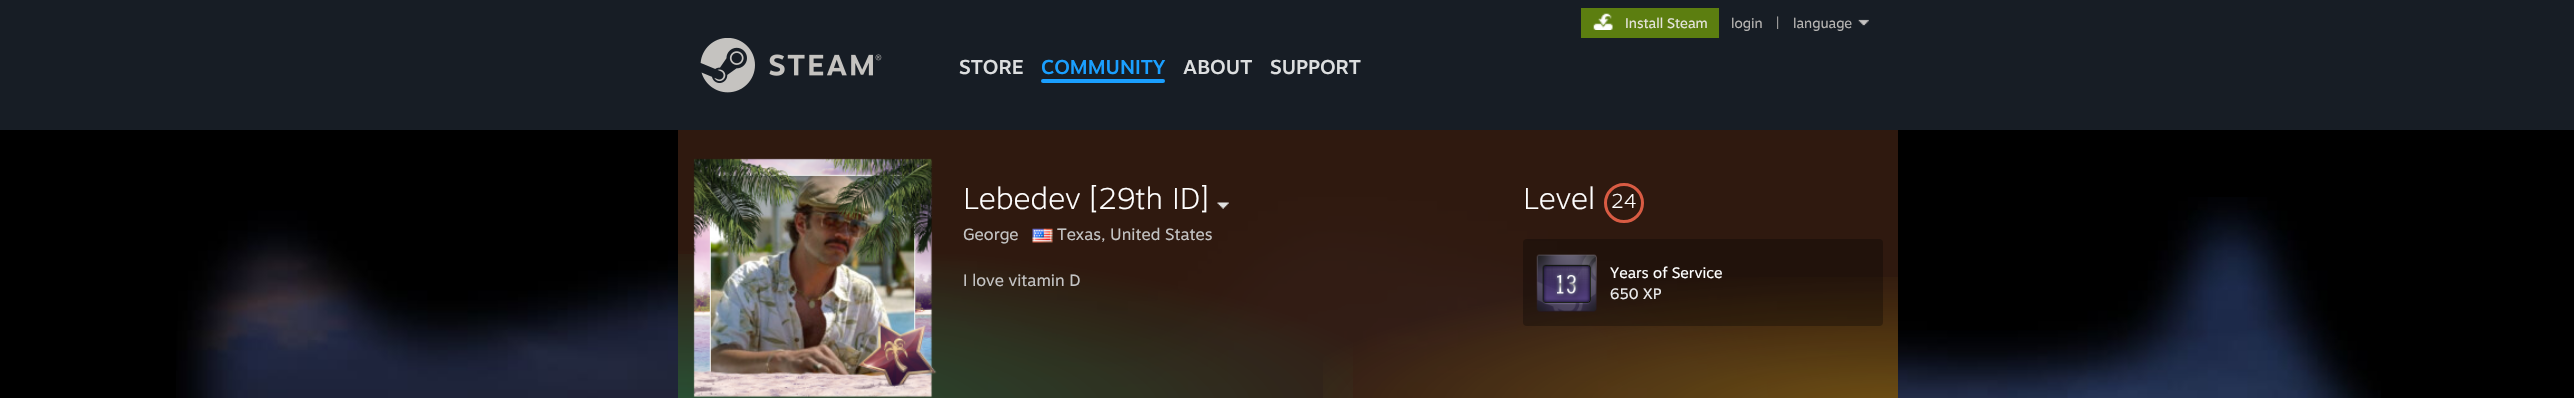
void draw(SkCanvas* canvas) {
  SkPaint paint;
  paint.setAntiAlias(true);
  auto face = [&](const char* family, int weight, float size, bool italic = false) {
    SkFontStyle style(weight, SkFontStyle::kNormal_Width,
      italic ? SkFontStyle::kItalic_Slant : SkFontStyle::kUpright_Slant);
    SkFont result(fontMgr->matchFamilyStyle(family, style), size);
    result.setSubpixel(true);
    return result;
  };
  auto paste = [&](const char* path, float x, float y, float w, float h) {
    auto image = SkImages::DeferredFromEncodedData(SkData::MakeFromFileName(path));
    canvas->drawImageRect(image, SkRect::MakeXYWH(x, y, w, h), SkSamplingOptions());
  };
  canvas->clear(0xff000000);
  paint.setColor(0xff171d25);
  canvas->drawRect(SkRect::MakeXYWH(0, 0, 2574, 130), paint);
  paint.setColor(0xff5c7e10);
  canvas->drawRect(SkRect::MakeXYWH(1581, 8, 138, 30), paint);
  paste("img/1.png", 1593, 13, 20, 17);
  paste("img/2.png", 1858, 19, 11, 7);
  paste("img/3.png", 700, 38, 182, 55);
  paint.setColor(0xff1a9fff);
  canvas->drawRoundRect(SkRect::MakeXYWH(1041, 79, 124, 4), 2, 2, paint);
  paste("img/9.png", 176, 197, 2205, 201);
  paint.setColor(0xed331b10);
  canvas->drawRect(SkRect::MakeXYWH(678, 130, 1220, 268), paint);
  {
    const SkColor colors[] = {0x4009f399, 0x0009f399};
    const float stops[] = {0, 0.43f};
    SkMatrix m = SkMatrix::Translate(678, 410).preScale(1725, 396);
    paint.setShader(SkGradientShader::MakeRadial({0, 0}, 1, colors, stops, 2, SkTileMode::kClamp, 0, &m));
    paint.setAlpha(255);
  }
  canvas->drawRect(SkRect::MakeXYWH(678, 254, 675, 144), paint);
  {
    const SkColor colors[] = {0x4dfcc510, 0x00fcc510};
    const float stops[] = {0, 0.51f};
    SkMatrix m = SkMatrix::Translate(1898, 410).preScale(1220, 280);
    paint.setShader(SkGradientShader::MakeRadial({0, 0}, 1, colors, stops, 2, SkTileMode::kClamp, 0, &m));
    paint.setAlpha(255);
  }
  canvas->drawRect(SkRect::MakeXYWH(1323, 277, 575, 121), paint);
  paste("img/5.png", 710, 175, 205, 201);
  paste("img/4.png", 693, 158, 244, 240);
  paste("img/6.png", 1217, 202, 12, 7);
  paste("img/7.png", 1032, 228, 21, 15);
  paint.setStroke(true);
  paint.setStrokeWidth(3);
  paint.setShader(nullptr);
  paint.setColor(0xffd95b43);
  canvas->drawCircle(1624, 203, 18.5f, paint);
  paint.setStroke(false);
  paint.setColor(0x4d000000);
  canvas->drawRoundRect(SkRect::MakeXYWH(1523, 239, 360, 87), 4, 4, paint);
  paste("img/8.png", 1536, 254, 61, 58);
  auto f0 = face("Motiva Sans", 400, 13.75f);
  paint.setColor(0xffe5e4dc);
  canvas->drawString("Install Steam", 1625, 28, f0, paint);
  paint.setColor(0xffb8b6b4);
  {
    const struct { const char* s; float x, y; } items[] = {
      {"login", 1731, 28},
      {"|", 1776, 28},
      {"language", 1793, 28},
    };
    for (auto [s, x, y] : items) {
      canvas->drawString(s, x, y, f0, paint);
    }
  }
  auto f1 = face("Motiva Sans", 500, 20);
  paint.setColor(0xffdcdedf);
  canvas->drawString("STORE", 959, 74, f1, paint);
  paint.setColor(0xff1a9fff);
  canvas->drawString("COMMUNITY", 1041, 74, f1, paint);
  paint.setColor(0xffdcdedf);
  canvas->drawString("ABOUT", 1183, 74, f1, paint);
  canvas->drawString("SUPPORT", 1270, 74, f1, paint);
  auto f2 = face("Motiva Sans", 100, 30);
  paint.setColor(0xffffffff);
  canvas->drawString("Lebedev [29th ID]", 963, 209, f2, paint);
  auto f3 = face("Motiva Sans", 400, 16.25f);
  paint.setColor(0xffc4c4c4);
  {
    const struct { const char* s; float x, y; } items[] = {
      {"George", 963, 240},
      {"Texas, United States", 1057, 240},
      {"I love vitamin D", 963, 286},
    };
    for (auto [s, x, y] : items) {
      canvas->drawString(s, x, y, f3, paint);
    }
  }
  paint.setColor(0xffffffff);
  canvas->drawString("Level", 1523, 209, f2, paint);
  auto f4 = face("Motiva Sans", 100, 20);
  canvas->drawString("24", 1611, 208, f4, paint);
  auto f5 = face("Motiva Sans", 400, 15);
  canvas->drawString("Years of Service", 1610, 278, f5, paint);
  paint.setColor(0xffebebeb);
  canvas->drawString("650 XP", 1610, 299, f5, paint);
}
